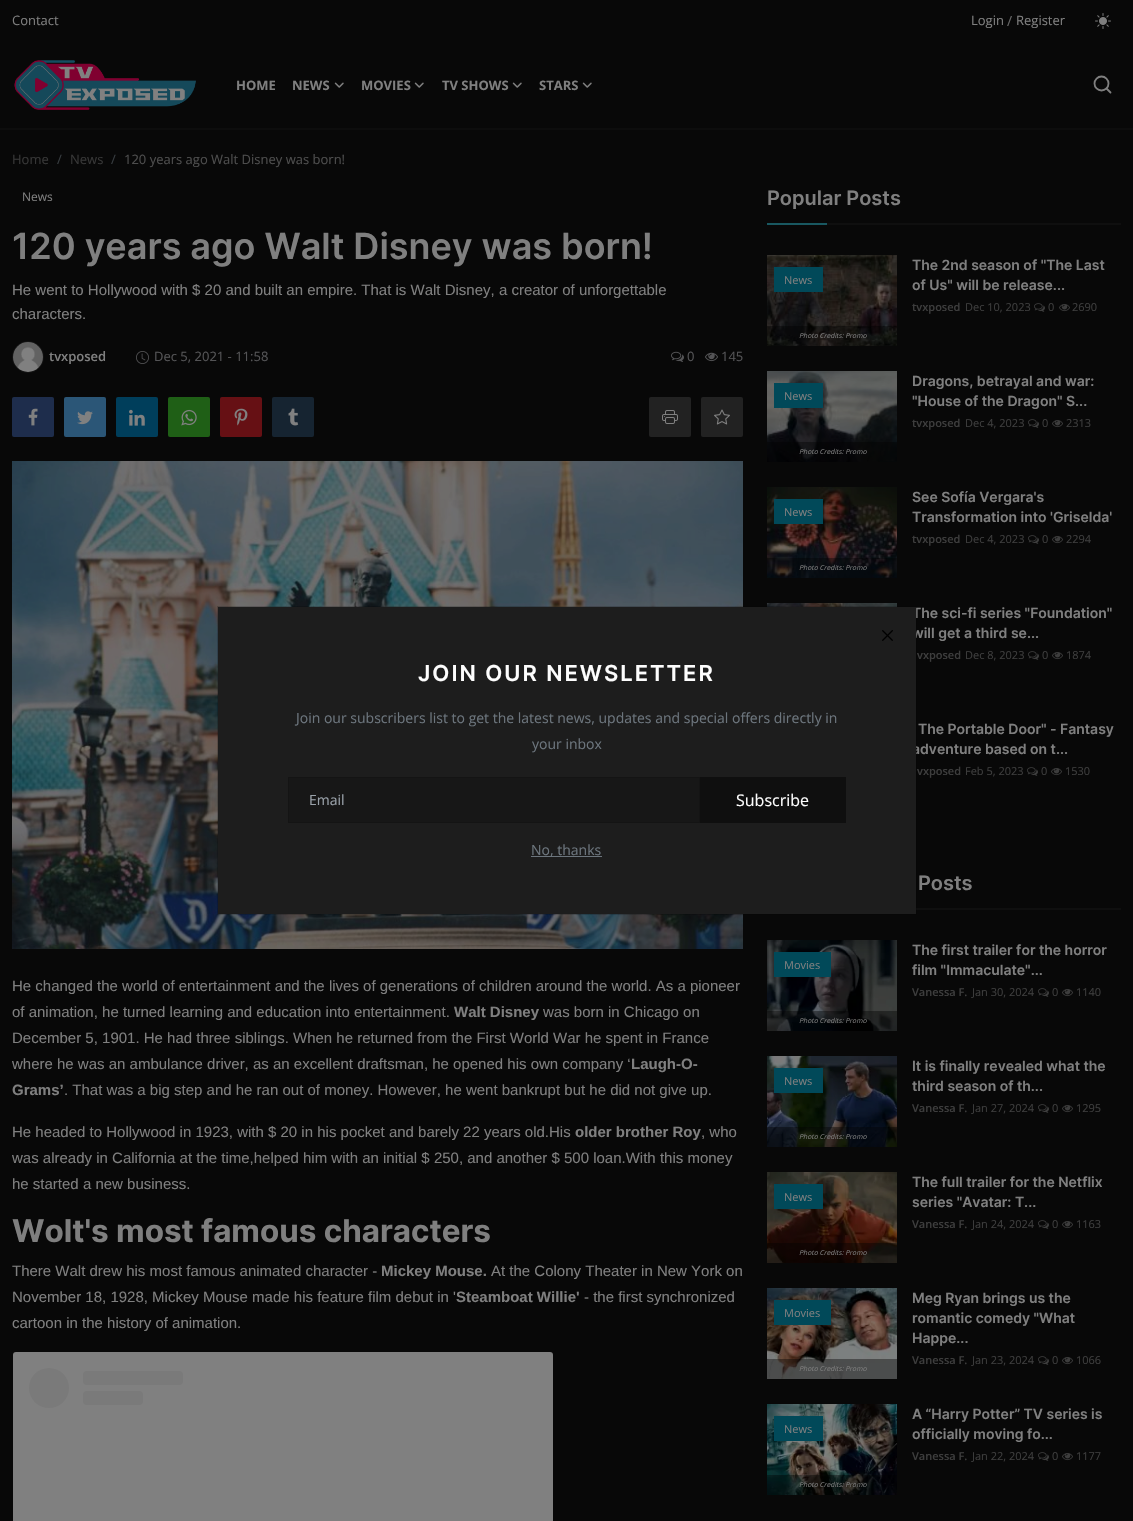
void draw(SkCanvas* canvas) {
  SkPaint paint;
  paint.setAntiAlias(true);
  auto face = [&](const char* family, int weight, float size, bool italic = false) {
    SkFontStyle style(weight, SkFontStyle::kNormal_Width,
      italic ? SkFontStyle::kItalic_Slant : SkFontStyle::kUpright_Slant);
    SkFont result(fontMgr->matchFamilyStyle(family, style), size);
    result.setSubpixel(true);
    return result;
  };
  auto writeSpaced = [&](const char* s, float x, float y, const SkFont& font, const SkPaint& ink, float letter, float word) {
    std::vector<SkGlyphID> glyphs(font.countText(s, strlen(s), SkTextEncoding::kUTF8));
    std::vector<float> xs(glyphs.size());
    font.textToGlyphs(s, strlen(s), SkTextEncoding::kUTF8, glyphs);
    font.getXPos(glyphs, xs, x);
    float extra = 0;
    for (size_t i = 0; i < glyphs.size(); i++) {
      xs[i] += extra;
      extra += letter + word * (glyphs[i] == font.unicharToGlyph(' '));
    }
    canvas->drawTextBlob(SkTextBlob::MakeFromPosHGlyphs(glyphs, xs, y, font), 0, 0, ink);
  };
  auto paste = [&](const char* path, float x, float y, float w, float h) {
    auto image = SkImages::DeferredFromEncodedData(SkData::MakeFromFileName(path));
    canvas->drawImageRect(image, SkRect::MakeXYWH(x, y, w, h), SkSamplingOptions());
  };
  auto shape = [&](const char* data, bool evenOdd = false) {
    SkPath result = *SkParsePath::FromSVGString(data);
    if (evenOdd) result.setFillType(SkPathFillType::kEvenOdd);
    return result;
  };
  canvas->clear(0xff080808);
  paste("img/1.png", 1095, 13, 16, 16);
  paint.setColor(0xff0d0d0d);
  canvas->drawRect(SkRect::MakeXYWH(0, 128, 1133, 2), paint);
  paste("img/2.png", 14, 60, 182, 50);
  paste("img/3.png", 334, 82, 10, 6);
  paste("img/3.png", 414, 82, 10, 6);
  paste("img/3.png", 512, 82, 10, 6);
  paste("img/3.png", 582, 82, 10, 6);
  paint.setStroke(true);
  paint.setStrokeWidth(1.8f);
  paint.setColor(0xff7f7f7f);
  canvas->drawCircle(1101.5f, 83.5f, 7, paint);
  paint.setStrokeCap(SkPaint::kRound_Cap);
  paint.setStrokeJoin(SkPaint::kRound_Join);
  canvas->drawPath(shape("M1110.5 92.5L1106.5 88.5"), paint);
  paint.setStrokeWidth(1);
  paint.setStrokeCap(SkPaint::kButt_Cap);
  paint.setStrokeJoin(SkPaint::kMiter_Join);
  paint.setColor(0xff131313);
  canvas->drawCircle(28, 357, 15.5f, paint);
  paste("img/4.png", 13, 342, 30, 30);
  paste("img/5.png", 136, 351, 13, 13);
  paste("img/6.png", 671, 351, 13, 11);
  paste("img/7.png", 705, 352, 13, 10);
  paint.setStroke(false);
  paint.setColor(0xff1e2d4c);
  canvas->drawRoundRect(SkRect::MakeXYWH(12, 397, 42, 40), 2, 2, paint);
  paste("img/8.png", 28, 408, 10, 18);
  paint.setColor(0xff2b5677);
  canvas->drawRoundRect(SkRect::MakeXYWH(64, 397, 42, 40), 2, 2, paint);
  paste("img/9.png", 77, 411, 16, 14);
  paint.setColor(0xff003e5b);
  canvas->drawRoundRect(SkRect::MakeXYWH(116, 397, 42, 40), 2, 2, paint);
  paste("img/10.png", 129, 409, 16, 17);
  paint.setColor(0xff1f5f16);
  canvas->drawRoundRect(SkRect::MakeXYWH(168, 397, 42, 40), 2, 2, paint);
  paste("img/11.png", 181, 409, 16, 17);
  paint.setColor(0xff661014);
  canvas->drawRoundRect(SkRect::MakeXYWH(220, 397, 42, 40), 2, 2, paint);
  paste("img/12.png", 234, 408, 14, 18);
  paint.setColor(0xff162431);
  canvas->drawRoundRect(SkRect::MakeXYWH(272, 397, 42, 40), 2, 2, paint);
  paste("img/13.png", 288, 408, 11, 18);
  paint.setColor(0xff222222);
  canvas->drawRoundRect(SkRect::MakeXYWH(649, 397, 42, 40), 2, 2, paint);
  paste("img/14.png", 662, 410, 16, 14);
  canvas->drawRoundRect(SkRect::MakeXYWH(701, 397, 42, 40), 2, 2, paint);
  paste("img/15.png", 714, 409, 16, 16);
  paste("img/16.png", 12, 461, 731, 488);
  paint.setColor(0xff808080);
  canvas->drawRoundRect(SkRect::MakeXYWH(13, 1352, 540, 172), 3, 3, paint);
  paint.setColor(0xff7a7a7a);
  canvas->drawCircle(49, 1388, 20, paint);
  canvas->drawRoundRect(SkRect::MakeXYWH(83, 1371, 100, 14), 4, 4, paint);
  canvas->drawRoundRect(SkRect::MakeXYWH(83, 1391, 60, 14), 4, 4, paint);
  paint.setColor(0xff0f0f0f);
  canvas->drawRect(SkRect::MakeXYWH(827, 223, 294, 2), paint);
  paint.setColor(0xff195861);
  canvas->drawRect(SkRect::MakeXYWH(767, 223, 60, 2), paint);
  paste("img/17.png", 767, 255, 130, 91);
  paint.setColor(0xff014959);
  canvas->drawRect(SkRect::MakeXYWH(774, 267, 49, 25), paint);
  paint.setColor(0x66000000);
  canvas->drawRect(SkRect::MakeXYWH(767, 326, 130, 20), paint);
  paste("img/18.png", 1034, 303, 11, 9);
  paste("img/19.png", 1059, 304, 11, 8);
  paste("img/20.png", 767, 371, 130, 91);
  paint.setColor(0xff014959);
  canvas->drawRect(SkRect::MakeXYWH(774, 383, 49, 25), paint);
  paint.setColor(0x66000000);
  canvas->drawRect(SkRect::MakeXYWH(767, 442, 130, 20), paint);
  paste("img/18.png", 1028, 419, 11, 9);
  paste("img/19.png", 1052, 420, 11, 8);
  paste("img/21.png", 767, 487, 130, 91);
  paint.setColor(0xff014959);
  canvas->drawRect(SkRect::MakeXYWH(774, 499, 49, 25), paint);
  paint.setColor(0x66000000);
  canvas->drawRect(SkRect::MakeXYWH(767, 558, 130, 20), paint);
  paste("img/18.png", 1028, 535, 11, 9);
  paste("img/19.png", 1052, 536, 11, 8);
  paste("img/22.png", 767, 603, 130, 4);
  paste("img/18.png", 1028, 651, 11, 9);
  paste("img/19.png", 1052, 652, 11, 8);
  paste("img/18.png", 1027, 767, 11, 9);
  paste("img/19.png", 1051, 768, 11, 8);
  paint.setColor(0xff0f0f0f);
  canvas->drawRect(SkRect::MakeXYWH(916, 908, 205, 2), paint);
  paste("img/23.png", 767, 940, 130, 91);
  paint.setColor(0xff014959);
  canvas->drawRect(SkRect::MakeXYWH(774, 952, 57, 25), paint);
  paint.setColor(0x66000000);
  canvas->drawRect(SkRect::MakeXYWH(767, 1011, 130, 20), paint);
  paste("img/18.png", 1038, 988, 11, 9);
  paste("img/19.png", 1062, 989, 11, 8);
  paste("img/24.png", 767, 1056, 130, 91);
  paint.setColor(0xff014959);
  canvas->drawRect(SkRect::MakeXYWH(774, 1068, 49, 25), paint);
  paint.setColor(0x66000000);
  canvas->drawRect(SkRect::MakeXYWH(767, 1127, 130, 20), paint);
  paste("img/18.png", 1038, 1104, 11, 9);
  paste("img/19.png", 1062, 1105, 11, 8);
  paste("img/25.png", 767, 1172, 130, 91);
  paint.setColor(0xff014959);
  canvas->drawRect(SkRect::MakeXYWH(774, 1184, 49, 25), paint);
  paint.setColor(0x66000000);
  canvas->drawRect(SkRect::MakeXYWH(767, 1243, 130, 20), paint);
  paste("img/18.png", 1038, 1220, 11, 9);
  paste("img/19.png", 1062, 1221, 11, 8);
  paste("img/26.png", 767, 1288, 130, 91);
  paint.setColor(0xff014959);
  canvas->drawRect(SkRect::MakeXYWH(774, 1300, 57, 25), paint);
  paint.setColor(0x66000000);
  canvas->drawRect(SkRect::MakeXYWH(767, 1359, 130, 20), paint);
  paste("img/18.png", 1038, 1356, 11, 9);
  paste("img/19.png", 1062, 1357, 11, 8);
  paste("img/27.png", 767, 1404, 130, 91);
  paint.setColor(0xff014959);
  canvas->drawRect(SkRect::MakeXYWH(774, 1416, 49, 25), paint);
  paint.setColor(0x66000000);
  canvas->drawRect(SkRect::MakeXYWH(767, 1475, 130, 20), paint);
  paste("img/18.png", 1038, 1452, 11, 9);
  paste("img/19.png", 1062, 1453, 11, 8);
  auto f0 = face("Open Sans", 400, 13);
  paint.setColor(0xff7f7f7f);
  canvas->drawString("Contact", 12, 25, f0, paint);
  canvas->drawString("Login", 971, 25, f0, paint);
  auto f1 = face("Open Sans", 400, 14);
  paint.setColor(0xff666666);
  canvas->drawString("/", 1007, 26, f1, paint);
  paint.setColor(0xff7f7f7f);
  canvas->drawString("Register", 1016, 25, f0, paint);
  auto f2 = face("Open Sans", 700, 13);
  {
    const struct { const char* s; float x, y; } items[] = {
      {"HOME", 236, 90},
      {"NEWS", 292, 90},
      {"MOVIES", 361, 90},
      {"TV SHOWS", 442, 90},
      {"STARS", 539, 90},
    };
    for (auto [s, x, y] : items) {
      canvas->drawString(s, x, y, f2, paint);
    }
  }
  paint.setColor(0xff363636);
  canvas->drawString("Home", 12, 164, f0, paint);
  paint.setColor(0xff363b3f);
  canvas->drawString("/", 57, 164, f0, paint);
  paint.setColor(0xff363636);
  canvas->drawString("News", 70, 164, f0, paint);
  paint.setColor(0xff363b3f);
  canvas->drawString("/", 111, 164, f0, paint);
  paint.setColor(0xff4d4d4d);
  canvas->drawString("120 years ago Walt Disney was born!", 124, 164, f0, paint);
  auto f3 = face("Open Sans", 400, 12);
  paint.setColor(0xff7f7f7f);
  canvas->drawString("News", 22, 201, f3, paint);
  auto f4 = face("Inter", 600, 36);
  canvas->drawString("120 years ago Walt Disney was born!", 12, 259, f4, paint);
  auto f5 = face("Liberation Sans", 400, 15);
  canvas->drawString("He went to Hollywood with $ 20 and built an empire. That is Walt Disney, a creator of unforgettable", 12, 295, f5, paint);
  canvas->drawString("characters.", 12, 319, f5, paint);
  auto f6 = face("Open Sans", 600, 13);
  canvas->drawString("tvxposed", 49, 361, f6, paint);
  paint.setColor(0xff545456);
  {
    const struct { const char* s; float x, y; } items[] = {
      {"Dec 5, 2021 - 11:58", 154, 361},
      {"0", 687, 361},
      {"145", 721, 361},
    };
    for (auto [s, x, y] : items) {
      canvas->drawString(s, x, y, f0, paint);
    }
  }
  paint.setColor(0xff7f7f7f);
  canvas->drawString("He changed the world of entertainment and the lives of generations of children around the world. As a pioneer", 12, 991, f5, paint);
  canvas->drawString("of animation, he turned learning and education into entertainment.", 12, 1017, f5, paint);
  auto f7 = face("Liberation Sans", 700, 15);
  canvas->drawString("Walt Disney", 454, 1017, f7, paint);
  {
    const struct { const char* s; float x, y; } items[] = {
      {"was born in Chicago on", 543, 1017},
      {"December 5, 1901. He had three siblings. When he returned from the First World War he spent in France", 12, 1043},
      {"where he was an ambulance driver, as an excellent draftsman, he opened his own company ‘", 12, 1069},
    };
    for (auto [s, x, y] : items) {
      canvas->drawString(s, x, y, f5, paint);
    }
  }
  canvas->drawString("Laugh-O-", 631, 1069, f7, paint);
  canvas->drawString("Grams’", 12, 1095, f7, paint);
  canvas->drawString(". That was a big step and he ran out of money. However, he went bankrupt but he did not give up.", 64, 1095, f5, paint);
  canvas->drawString("He headed to Hollywood in 1923, with $ 20 in his pocket and barely 22 years old.His", 12, 1137, f5, paint);
  canvas->drawString("older brother Roy", 575, 1137, f7, paint);
  {
    const struct { const char* s; float x, y; } items[] = {
      {", who", 701, 1137},
      {"was already in California at the time,helped him with an initial $ 250, and another $ 500 loan.With this money", 12, 1163},
      {"he started a new business.", 12, 1189},
    };
    for (auto [s, x, y] : items) {
      canvas->drawString(s, x, y, f5, paint);
    }
  }
  auto f8 = face("Inter", 700, 31.4f);
  canvas->drawString("Wolt's most famous characters", 12, 1242, f8, paint);
  canvas->drawString("There Walt drew his most famous animated character -", 12, 1276, f5, paint);
  canvas->drawString("Mickey Mouse.", 381, 1276, f7, paint);
  canvas->drawString("At the Colony Theater in New York on", 491, 1276, f5, paint);
  canvas->drawString("November 18, 1928, Mickey Mouse made his feature film debut in '", 12, 1302, f5, paint);
  canvas->drawString("Steamboat Willie'", 456, 1302, f7, paint);
  canvas->drawString("- the first synchronized", 584, 1302, f5, paint);
  canvas->drawString("cartoon in the history of animation.", 12, 1328, f5, paint);
  auto f9 = face("Inter", 600, 20);
  canvas->drawString("Popular Posts", 767, 205, f9, paint);
  auto f10 = face("Open Sans", 400, 11);
  canvas->drawString("News", 784, 284, f10, paint);
  auto f11 = face("Open Sans", 400, 6.75f, true);
  canvas->drawString("Photo Credits: Promo", 799, 338, f11, paint);
  auto f12 = face("Inter", 600, 14);
  canvas->drawString("The 2nd season of \"The Last", 912, 270, f12, paint);
  canvas->drawString("of Us\" will be release...", 912, 290, f12, paint);
  auto f13 = face("Open Sans", 600, 11);
  paint.setColor(0xff3d3d3d);
  canvas->drawString("tvxposed", 912, 311, f13, paint);
  {
    const struct { const char* s; float x, y; } items[] = {
      {"Dec 10, 2023", 965, 311},
      {"0", 1048, 311},
      {"2690", 1072, 311},
    };
    for (auto [s, x, y] : items) {
      canvas->drawString(s, x, y, f10, paint);
    }
  }
  paint.setColor(0xff7f7f7f);
  canvas->drawString("News", 784, 400, f10, paint);
  canvas->drawString("Photo Credits: Promo", 799, 454, f11, paint);
  canvas->drawString("Dragons, betrayal and war:", 912, 386, f12, paint);
  canvas->drawString("\"House of the Dragon\" S...", 912, 406, f12, paint);
  paint.setColor(0xff3d3d3d);
  canvas->drawString("tvxposed", 912, 427, f13, paint);
  {
    const struct { const char* s; float x, y; } items[] = {
      {"Dec 4, 2023", 965, 427},
      {"0", 1042, 427},
      {"2313", 1066, 427},
    };
    for (auto [s, x, y] : items) {
      canvas->drawString(s, x, y, f10, paint);
    }
  }
  paint.setColor(0xff7f7f7f);
  canvas->drawString("News", 784, 516, f10, paint);
  canvas->drawString("Photo Credits: Promo", 799, 570, f11, paint);
  canvas->drawString("See Sofía Vergara's", 912, 502, f12, paint);
  canvas->drawString("Transformation into 'Griselda'", 912, 522, f12, paint);
  paint.setColor(0xff3d3d3d);
  canvas->drawString("tvxposed", 912, 543, f13, paint);
  {
    const struct { const char* s; float x, y; } items[] = {
      {"Dec 4, 2023", 965, 543},
      {"0", 1042, 543},
      {"2294", 1066, 543},
    };
    for (auto [s, x, y] : items) {
      canvas->drawString(s, x, y, f10, paint);
    }
  }
  paint.setColor(0xff7f7f7f);
  canvas->drawString("The sci-fi series \"Foundation\"", 912, 618, f12, paint);
  canvas->drawString("will get a third se...", 912, 638, f12, paint);
  paint.setColor(0xff3d3d3d);
  canvas->drawString("vxposed", 917, 659, f13, paint);
  {
    const struct { const char* s; float x, y; } items[] = {
      {"Dec 8, 2023", 965, 659},
      {"0", 1042, 659},
      {"1874", 1066, 659},
    };
    for (auto [s, x, y] : items) {
      canvas->drawString(s, x, y, f10, paint);
    }
  }
  paint.setColor(0xff7f7f7f);
  canvas->drawString("The Portable Door\" - Fantasy", 918, 734, f12, paint);
  canvas->drawString("adventure based on t...", 912, 754, f12, paint);
  paint.setColor(0xff3d3d3d);
  canvas->drawString("vxposed", 917, 775, f13, paint);
  {
    const struct { const char* s; float x, y; } items[] = {
      {"Feb 5, 2023", 965, 775},
      {"0", 1041, 775},
      {"1530", 1065, 775},
    };
    for (auto [s, x, y] : items) {
      canvas->drawString(s, x, y, f10, paint);
    }
  }
  paint.setColor(0xff7f7f7f);
  canvas->drawString("Posts", 918, 890, f9, paint);
  canvas->drawString("Movies", 784, 969, f10, paint);
  canvas->drawString("Photo Credits: Promo", 799, 1023, f11, paint);
  canvas->drawString("The first trailer for the horror", 912, 955, f12, paint);
  canvas->drawString("film \"Immaculate\"...", 912, 975, f12, paint);
  paint.setColor(0xff3d3d3d);
  canvas->drawString("Vanessa F.", 912, 996, f13, paint);
  {
    const struct { const char* s; float x, y; } items[] = {
      {"Jan 30, 2024", 972, 996},
      {"0", 1052, 996},
      {"1140", 1076, 996},
    };
    for (auto [s, x, y] : items) {
      canvas->drawString(s, x, y, f10, paint);
    }
  }
  paint.setColor(0xff7f7f7f);
  canvas->drawString("News", 784, 1085, f10, paint);
  canvas->drawString("Photo Credits: Promo", 799, 1139, f11, paint);
  canvas->drawString("It is finally revealed what the", 912, 1071, f12, paint);
  canvas->drawString("third season of th...", 912, 1091, f12, paint);
  paint.setColor(0xff3d3d3d);
  canvas->drawString("Vanessa F.", 912, 1112, f13, paint);
  {
    const struct { const char* s; float x, y; } items[] = {
      {"Jan 27, 2024", 972, 1112},
      {"0", 1052, 1112},
      {"1295", 1076, 1112},
    };
    for (auto [s, x, y] : items) {
      canvas->drawString(s, x, y, f10, paint);
    }
  }
  paint.setColor(0xff7f7f7f);
  canvas->drawString("News", 784, 1201, f10, paint);
  canvas->drawString("Photo Credits: Promo", 799, 1255, f11, paint);
  canvas->drawString("The full trailer for the Netflix", 912, 1187, f12, paint);
  canvas->drawString("series \"Avatar: T...", 912, 1207, f12, paint);
  paint.setColor(0xff3d3d3d);
  canvas->drawString("Vanessa F.", 912, 1228, f13, paint);
  {
    const struct { const char* s; float x, y; } items[] = {
      {"Jan 24, 2024", 972, 1228},
      {"0", 1052, 1228},
      {"1163", 1076, 1228},
    };
    for (auto [s, x, y] : items) {
      canvas->drawString(s, x, y, f10, paint);
    }
  }
  paint.setColor(0xff7f7f7f);
  canvas->drawString("Movies", 784, 1317, f10, paint);
  canvas->drawString("Photo Credits: Promo", 799, 1371, f11, paint);
  {
    const struct { const char* s; float x, y; } items[] = {
      {"Meg Ryan brings us the", 912, 1303},
      {"romantic comedy \"What", 912, 1323},
      {"Happe...", 912, 1343},
    };
    for (auto [s, x, y] : items) {
      canvas->drawString(s, x, y, f12, paint);
    }
  }
  paint.setColor(0xff3d3d3d);
  canvas->drawString("Vanessa F.", 912, 1364, f13, paint);
  {
    const struct { const char* s; float x, y; } items[] = {
      {"Jan 23, 2024", 972, 1364},
      {"0", 1052, 1364},
      {"1066", 1076, 1364},
    };
    for (auto [s, x, y] : items) {
      canvas->drawString(s, x, y, f10, paint);
    }
  }
  paint.setColor(0xff7f7f7f);
  canvas->drawString("News", 784, 1433, f10, paint);
  canvas->drawString("Photo Credits: Promo", 799, 1487, f11, paint);
  canvas->drawString("A “Harry Potter” TV series is", 912, 1419, f12, paint);
  canvas->drawString("officially moving fo...", 912, 1439, f12, paint);
  paint.setColor(0xff3d3d3d);
  canvas->drawString("Vanessa F.", 912, 1460, f13, paint);
  {
    const struct { const char* s; float x, y; } items[] = {
      {"Jan 22, 2024", 972, 1460},
      {"0", 1052, 1460},
      {"1177", 1076, 1460},
    };
    for (auto [s, x, y] : items) {
      canvas->drawString(s, x, y, f10, paint);
    }
  }
  paint.setColor(0xff1d1d1d);
  canvas->drawRect(SkRect::MakeXYWH(218, 607, 698, 307), paint);
  paint.setStroke(true);
  paint.setColor(0x2e000000);
  canvas->drawRect(SkRect::MakeXYWH(217.5f, 606.5f, 699, 308), paint);
  paste("img/28.png", 882, 630, 11, 11);
  auto f14 = face("Inter", 600, 22);
  paint.setStroke(false);
  paint.setColor(0xfffdfdfd);
  writeSpaced("JOIN OUR NEWSLETTER", 418, 681, f14, paint, 2, 0);
  paint.setColor(0xff6c757d);
  canvas->drawString("Join our subscribers list to get the latest news, updates and special offers directly in", 296, 723, f1, paint);
  canvas->drawString("your inbox", 532, 749, f1, paint);
  paint.setColor(0xff171717);
  canvas->drawRect(SkRect::MakeXYWH(288.5f, 777.5f, 411, 45), paint);
  paint.setStroke(true);
  paint.setColor(0xff141414);
  canvas->drawRect(SkRect::MakeXYWH(288.5f, 777.5f, 411, 45), paint);
  paint.setStroke(false);
  paint.setColor(0xff9aa2aa);
  canvas->drawString("Email", 309, 805, f1, paint);
  paint.setColor(0xff0f0f0f);
  canvas->drawRect(SkRect::MakeXYWH(700, 777, 146, 46), paint);
  auto f15 = face("Open Sans", 400, 16);
  paint.setColor(0xfffdfdfd);
  canvas->drawString("Subscribe", 736, 806, f15, paint);
  paint.setColor(0xff6c757d);
  canvas->drawRect(SkRect::MakeXYWH(531, 856, 71, 1), paint);
  canvas->drawString("No, thanks", 531, 855, f1, paint);
}
